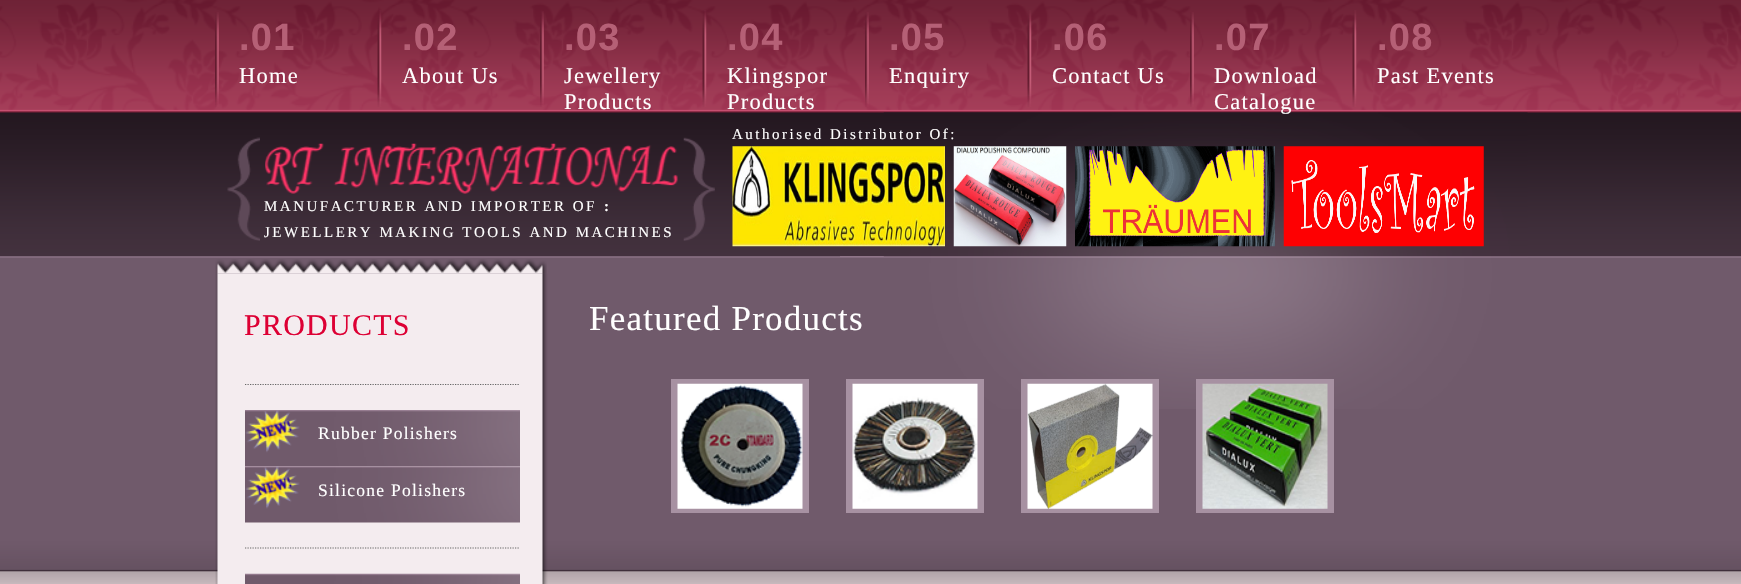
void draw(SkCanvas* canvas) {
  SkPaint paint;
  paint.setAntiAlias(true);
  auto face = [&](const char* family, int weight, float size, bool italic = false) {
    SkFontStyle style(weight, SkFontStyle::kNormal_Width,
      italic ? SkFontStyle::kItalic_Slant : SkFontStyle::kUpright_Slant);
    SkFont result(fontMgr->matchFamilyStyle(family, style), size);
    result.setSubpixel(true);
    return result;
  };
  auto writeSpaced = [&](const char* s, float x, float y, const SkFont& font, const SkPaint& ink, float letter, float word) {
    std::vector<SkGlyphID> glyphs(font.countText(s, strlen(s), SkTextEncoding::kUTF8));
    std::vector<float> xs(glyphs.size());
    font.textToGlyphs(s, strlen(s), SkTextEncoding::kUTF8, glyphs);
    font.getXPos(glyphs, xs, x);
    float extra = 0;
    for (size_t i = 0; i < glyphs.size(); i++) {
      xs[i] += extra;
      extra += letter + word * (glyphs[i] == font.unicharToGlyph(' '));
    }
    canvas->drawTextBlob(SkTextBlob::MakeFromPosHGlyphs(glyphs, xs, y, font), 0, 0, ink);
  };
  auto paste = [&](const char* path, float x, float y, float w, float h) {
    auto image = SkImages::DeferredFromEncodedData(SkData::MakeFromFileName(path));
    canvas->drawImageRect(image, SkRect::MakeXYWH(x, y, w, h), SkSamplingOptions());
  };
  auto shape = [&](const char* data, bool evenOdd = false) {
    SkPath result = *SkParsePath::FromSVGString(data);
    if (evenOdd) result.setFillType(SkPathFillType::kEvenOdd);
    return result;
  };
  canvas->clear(0xffffffff);
  paste("img/1.png", 0, 0, 1741, 584);
  paste("img/2.png", 215, 12, 4, 95);
  paste("img/3.png", 377, 10, 5, 97);
  paste("img/4.png", 540, 11, 4, 96);
  paste("img/5.png", 702, 10, 5, 97);
  paste("img/6.png", 865, 12, 4, 95);
  paste("img/7.png", 1027, 10, 5, 97);
  paste("img/8.png", 1190, 12, 4, 95);
  paste("img/9.png", 1352, 10, 5, 97);
  paste("img/23.png", 840, 256, 688, 153);
  paste("img/10.png", 883, 112, 645, 145);
  paste("img/11.png", 732, 146, 213, 101);
  paste("img/12.png", 953, 146, 114, 101);
  paste("img/13.png", 1075, 146, 200, 101);
  paste("img/14.png", 1283, 146, 201, 101);
  paste("img/15.png", 227, 137, 33, 104);
  paste("img/16.png", 265, 143, 413, 51);
  paste("img/17.png", 683, 137, 32, 104);
  paste("img/18.png", 215, 273, 333, 311);
  paste("img/19.png", 215, 259, 332, 15);
  paint.setStroke(true);
  paint.setStrokeWidth(1.2f);
  paint.setColor(0xff666666);
  paint.setPathEffect(SkDashPathEffect::Make({{1.25f, 1.25f}}, 0));
  canvas->drawPath(shape("M245 384.5H520"), paint);
  paint.setPathEffect(nullptr);
  paint.setPathEffect(SkDashPathEffect::Make({{1.25f, 1.25f}}, 0));
  canvas->drawPath(shape("M245 548H520"), paint);
  paint.setPathEffect(nullptr);
  paste("img/20.png", 245, 410, 275, 57);
  paste("img/21.png", 245, 466, 275, 57);
  paste("img/22.png", 245, 573, 275, 11);
  paint.setStroke(false);
  paint.setColor(0xffa791a2);
  canvas->drawRect(SkRect::MakeXYWH(671, 379, 138, 134), paint);
  paste("img/24.png", 677, 383, 126, 126);
  canvas->drawRect(SkRect::MakeXYWH(846, 379, 138, 134), paint);
  paste("img/25.png", 852, 383, 126, 126);
  canvas->drawRect(SkRect::MakeXYWH(1021, 379, 138, 134), paint);
  paste("img/26.png", 1027, 383, 126, 126);
  canvas->drawRect(SkRect::MakeXYWH(1196, 379, 138, 134), paint);
  paste("img/27.png", 1202, 383, 126, 126);
  auto f0 = face("Liberation Sans", 700, 38);
  paint.setColor(0xffb56076);
  writeSpaced(".01", 239, 50, f0, paint, 1.25f, 0);
  auto f1 = face("Liberation Serif", 400, 22.5f);
  paint.setColor(0xffffffff);
  writeSpaced("Home", 239, 83, f1, paint, 1.25f, 0);
  paint.setColor(0xffb56076);
  writeSpaced(".02", 402, 50, f0, paint, 1.25f, 0);
  paint.setColor(0xffffffff);
  writeSpaced("About Us", 402, 83, f1, paint, 1.25f, 0);
  paint.setColor(0xffb56076);
  writeSpaced(".03", 564, 50, f0, paint, 1.25f, 0);
  paint.setColor(0xffffffff);
  writeSpaced("Jewellery", 564, 83, f1, paint, 1.25f, 0);
  writeSpaced("Products", 564, 109, f1, paint, 1.25f, 0);
  paint.setColor(0xffb56076);
  writeSpaced(".04", 727, 50, f0, paint, 1.25f, 0);
  paint.setColor(0xffffffff);
  writeSpaced("Klingspor", 727, 83, f1, paint, 1.25f, 0);
  writeSpaced("Products", 727, 109, f1, paint, 1.25f, 0);
  paint.setColor(0xffb56076);
  writeSpaced(".05", 889, 50, f0, paint, 1.25f, 0);
  paint.setColor(0xffffffff);
  writeSpaced("Enquiry", 889, 83, f1, paint, 1.25f, 0);
  paint.setColor(0xffb56076);
  writeSpaced(".06", 1052, 50, f0, paint, 1.25f, 0);
  paint.setColor(0xffffffff);
  writeSpaced("Contact Us", 1052, 83, f1, paint, 1.25f, 0);
  paint.setColor(0xffb56076);
  writeSpaced(".07", 1214, 50, f0, paint, 1.25f, 0);
  paint.setColor(0xffffffff);
  writeSpaced("Download", 1214, 83, f1, paint, 1.25f, 0);
  writeSpaced("Catalogue", 1214, 109, f1, paint, 1.25f, 0);
  paint.setColor(0xffb56076);
  writeSpaced(".08", 1377, 50, f0, paint, 1.25f, 0);
  paint.setColor(0xffffffff);
  writeSpaced("Past Events", 1377, 83, f1, paint, 1.25f, 0);
  auto f2 = face("Liberation Serif", 400, 15);
  writeSpaced("Authorised Distributor Of:", 732, 139, f2, paint, 2.5f, 0);
  writeSpaced("MANUFACTURER AND IMPORTER OF", 264, 211, f2, paint, 2.5f, 0);
  auto f3 = face("Liberation Serif", 700, 15);
  writeSpaced(":", 604, 211, f3, paint, 2.5f, 0);
  writeSpaced("JEWELLERY MAKING TOOLS AND MACHINES", 264, 237, f2, paint, 2.5f, 0);
  auto f4 = face("Liberation Serif", 400, 30);
  paint.setColor(0xffdd0034);
  writeSpaced("PRODUCTS", 244, 335, f4, paint, 1.25f, 0);
  auto f5 = face("Liberation Serif", 400, 17.5f);
  paint.setColor(0xffffffff);
  writeSpaced("Rubber Polishers", 318, 439, f5, paint, 1.25f, 0);
  writeSpaced("Silicone Polishers", 318, 496, f5, paint, 1.25f, 0);
  auto f6 = face("Liberation Serif", 400, 35);
  writeSpaced("Featured Products", 589, 330, f6, paint, 1.25f, 0);
}
